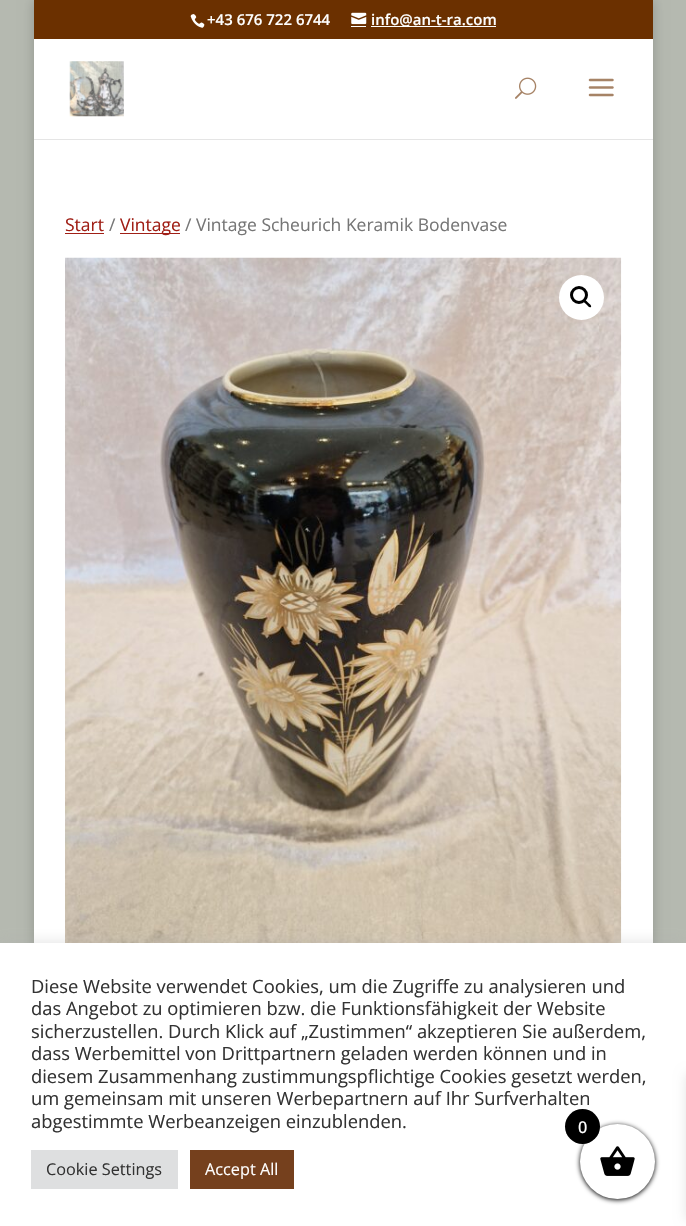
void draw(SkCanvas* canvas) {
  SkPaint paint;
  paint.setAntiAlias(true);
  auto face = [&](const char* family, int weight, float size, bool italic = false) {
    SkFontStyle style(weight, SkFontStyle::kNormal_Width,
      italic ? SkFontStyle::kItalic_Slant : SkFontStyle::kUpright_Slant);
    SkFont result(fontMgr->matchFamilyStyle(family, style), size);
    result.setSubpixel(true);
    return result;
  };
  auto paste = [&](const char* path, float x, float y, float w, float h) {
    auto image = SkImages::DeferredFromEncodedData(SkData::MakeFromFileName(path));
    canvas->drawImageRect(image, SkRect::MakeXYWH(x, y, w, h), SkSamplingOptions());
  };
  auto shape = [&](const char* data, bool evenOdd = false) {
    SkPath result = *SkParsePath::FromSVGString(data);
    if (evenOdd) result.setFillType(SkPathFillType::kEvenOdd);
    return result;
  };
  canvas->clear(0xffb5b9b0);
  paint.setColor(0x33000000);
  paint.setMaskFilter(SkMaskFilter::MakeBlur(kNormal_SkBlurStyle, 6));
  canvas->drawRect(SkRect::MakeXYWH(34, 0, 619, 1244), paint);
  paint.setMaskFilter(nullptr);
  paint.setColor(0xff6b3000);
  canvas->drawRect(SkRect::MakeXYWH(34, 0, 619, 39), paint);
  paste("img/1.png", 190, 14, 15, 14);
  paste("img/2.png", 351, 12, 16, 13);
  {
    const struct { float x, y, w, h; SkColor color; } items[] = {
      {351, 26, 15, 1, 0xffffffff},
      {371, 26, 125, 1, 0xffffffff},
      {34, 139, 619, 804, 0xffffffff},
    };
    for (auto [x, y, w, h, color] : items) {
      paint.setColor(color);
      canvas->drawRect(SkRect::MakeXYWH(x, y, w, h), paint);
    }
  }
  paint.setColor(0x1a000000);
  canvas->drawPath(shape("M34 139V140H653V40H652V139Z"), paint);
  paint.setColor(0xffffffff);
  canvas->drawRect(SkRect::MakeXYWH(34, 39, 619, 100), paint);
  paste("img/3.png", 69, 61, 55, 56);
  paste("img/4.png", 515, 77, 22, 22);
  paste("img/5.png", 588, 78, 26, 19);
  paint.setColor(0xffa01f16);
  canvas->drawRect(SkRect::MakeXYWH(65, 233, 39, 1), paint);
  canvas->drawRect(SkRect::MakeXYWH(120, 233, 60, 1), paint);
  paste("img/6.png", 65, 257, 557, 686);
  paint.setColor(0xffffffff);
  canvas->drawCircle(581.5f, 297.5f, 22.5f, paint);
  paint.setStroke(true);
  paint.setStrokeWidth(3);
  paint.setColor(0xff000000);
  canvas->drawCircle(579, 295, 7.5f, paint);
  paint.setStroke(false);
  canvas->drawPath(shape("M583.5 300C585 298.5 587.5 302 588 302.5C589 303.5 592 305.5 591 307C589.5 308.5 587 305 586.5 304.5C585.5 303.5 582.5 301.5 583.5 300Z"), paint);
  paint.setColor(0x4dacabab);
  paint.setMaskFilter(SkMaskFilter::MakeBlur(kNormal_SkBlurStyle, 6));
  canvas->drawRect(SkRect::MakeXYWH(0, 941, 686, 284), paint);
  paint.setMaskFilter(nullptr);
  {
    const struct { float x, y, w, h; SkColor color; } items[] = {
      {0, 943, 686, 283, 0xffffffff},
      {31, 1150, 147, 39, 0xffdedfe0},
      {190, 1150, 104, 39, 0xff75401d},
    };
    for (auto [x, y, w, h, color] : items) {
      paint.setColor(color);
      canvas->drawRect(SkRect::MakeXYWH(x, y, w, h), paint);
    }
  }
  paint.setColor(0xff000000);
  paint.setMaskFilter(SkMaskFilter::MakeBlur(kNormal_SkBlurStyle, 2.5f));
  canvas->drawRoundRect(SkRect::MakeXYWH(580, 1125, 75, 75), 37.5f, 37.5f, paint);
  paint.setMaskFilter(nullptr);
  paint.setColor(0xffffffff);
  canvas->drawCircle(617.5f, 1161.5f, 37.5f, paint);
  paste("img/7.png", 600, 1146, 35, 30);
  paint.setColor(0x1a000000);
  paint.setMaskFilter(SkMaskFilter::MakeBlur(kNormal_SkBlurStyle, 6));
  canvas->drawRect(SkRect::MakeXYWH(686, 1074, 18, 146), paint);
  paint.setMaskFilter(nullptr);
  auto f0 = face("Open Sans", 600, 15);
  paint.setColor(0xffffffff);
  canvas->drawString("+43 676 722 6744", 207, 25, f0, paint);
  canvas->drawString("info@an-t-ra.com", 371, 25, f0, paint);
  auto f1 = face("Open Sans", 400, 17.5f);
  paint.setColor(0xffa01f16);
  canvas->drawString("Start", 65, 231, f1, paint);
  paint.setColor(0xff767676);
  canvas->drawString("/", 109, 231, f1, paint);
  paint.setColor(0xffa01f16);
  canvas->drawString("Vintage", 120, 231, f1, paint);
  paint.setColor(0xff767676);
  canvas->drawString("/ Vintage Scheurich Keramik Bodenvase", 185, 231, f1, paint);
  auto f2 = face("Open Sans", 400, 18.35f);
  paint.setColor(0xff333333);
  {
    const struct { const char* s; float x, y; } items[] = {
      {"Diese Website verwendet Cookies, um die Zugriffe zu analysieren und", 31, 993},
      {"das Angebot zu optimieren bzw. die Funktionsfähigkeit der Website", 31, 1015},
      {"sicherzustellen. Durch Klick auf „Zustimmen“ akzeptieren Sie außerdem,", 31, 1038},
      {"dass Werbemittel von Drittpartnern geladen werden können und in", 31, 1060},
      {"diesem Zusammenhang zustimmungspflichtige Cookies gesetzt werden,", 31, 1083},
      {"um gemeinsam mit unseren Werbepartnern auf Ihr Surfverhalten", 31, 1105},
      {"abgestimmte Werbeanzeigen einzublenden.", 31, 1128},
    };
    for (auto [s, x, y] : items) {
      canvas->drawString(s, x, y, f2, paint);
    }
  }
  auto f3 = face("Open Sans", 400, 16.25f);
  canvas->drawString("Cookie Settings", 46, 1175, f3, paint);
  paint.setColor(0xffffffff);
  canvas->drawString("Accept All", 205, 1175, f3, paint);
  paint.setColor(0xff000000);
  canvas->drawCircle(582.5f, 1126.5f, 17.5f, paint);
  auto f4 = face("Open Sans", 500, 16.25f);
  paint.setColor(0xffffffff);
  canvas->drawString("0", 578, 1133, f4, paint);
}
